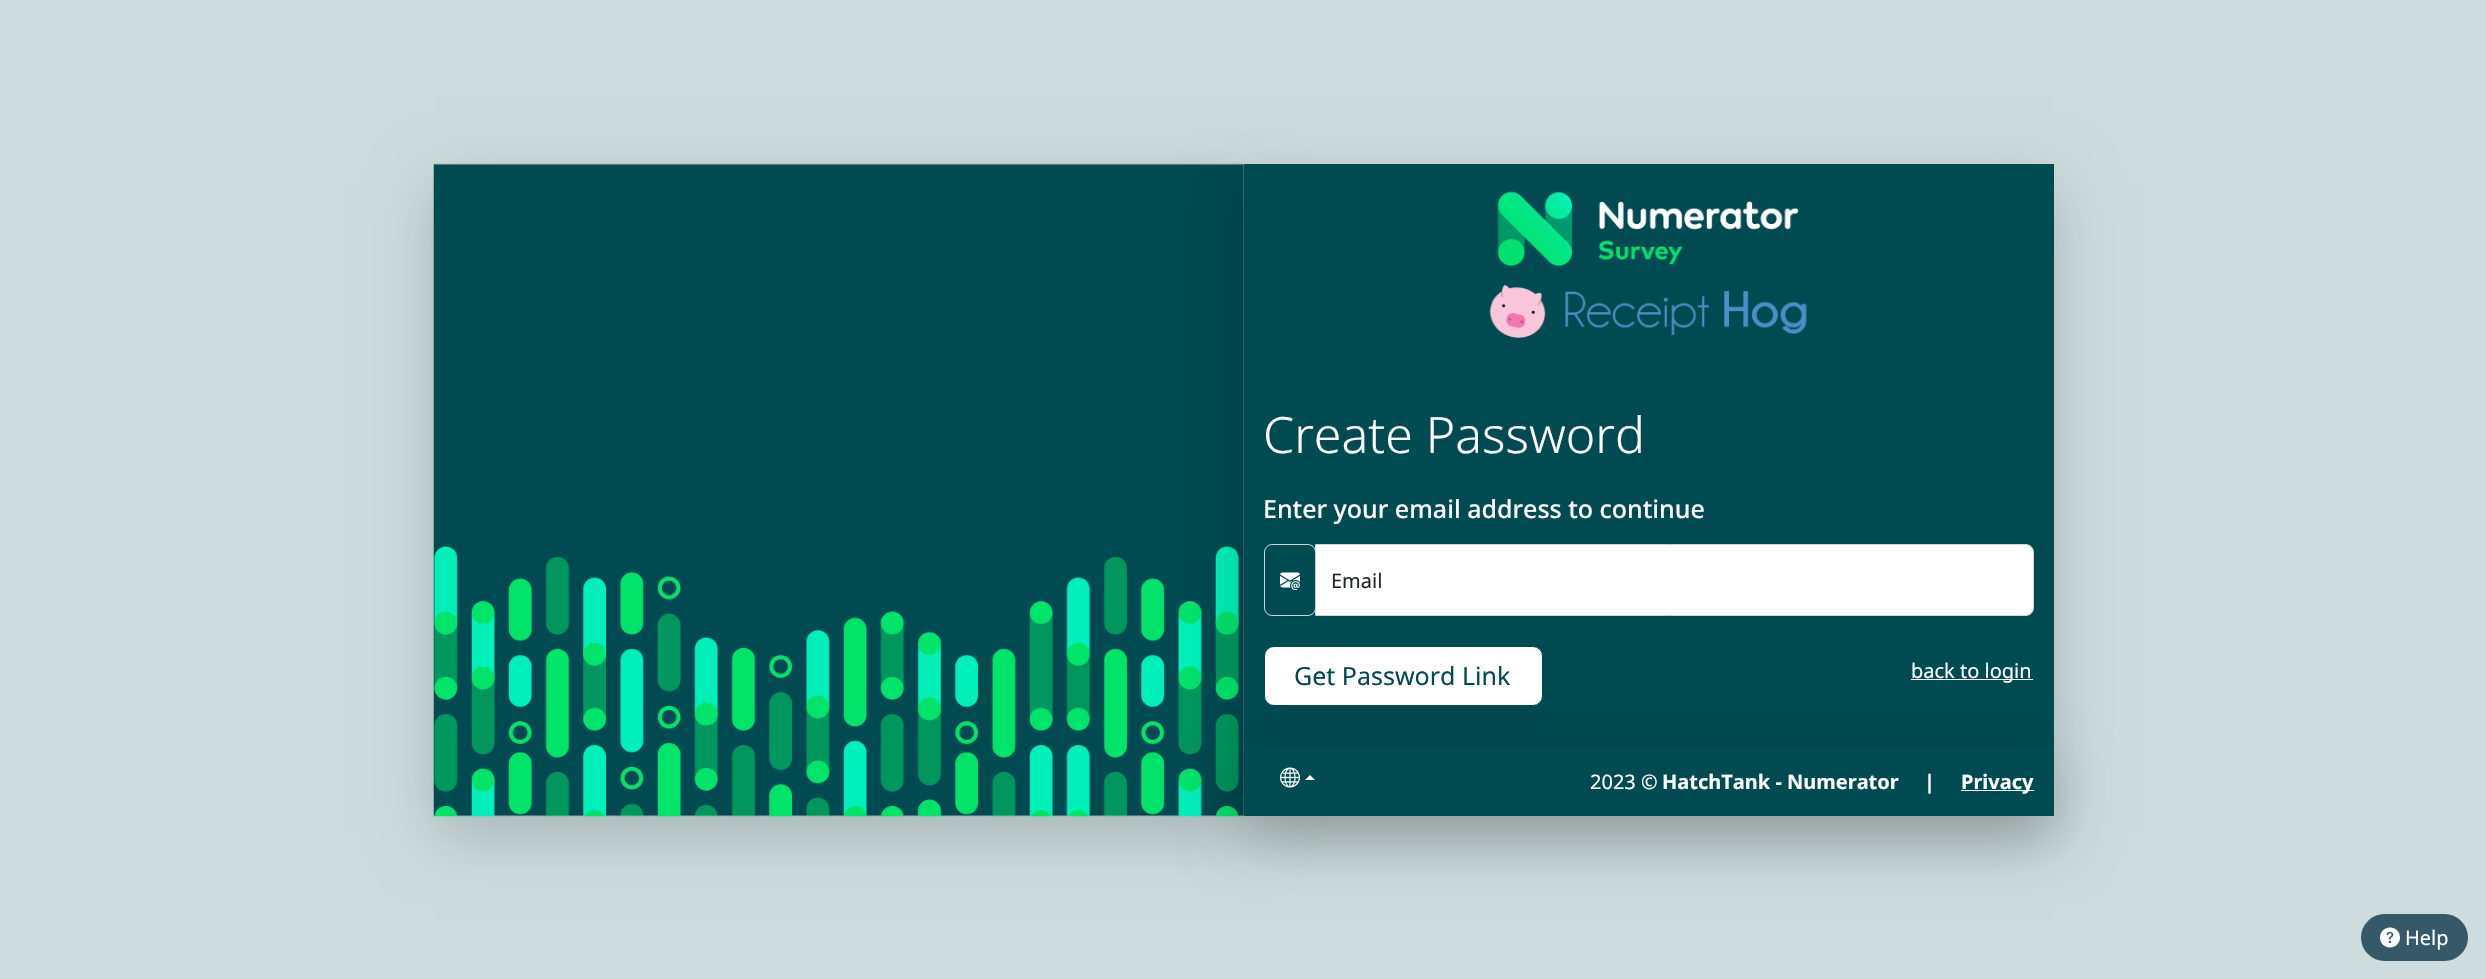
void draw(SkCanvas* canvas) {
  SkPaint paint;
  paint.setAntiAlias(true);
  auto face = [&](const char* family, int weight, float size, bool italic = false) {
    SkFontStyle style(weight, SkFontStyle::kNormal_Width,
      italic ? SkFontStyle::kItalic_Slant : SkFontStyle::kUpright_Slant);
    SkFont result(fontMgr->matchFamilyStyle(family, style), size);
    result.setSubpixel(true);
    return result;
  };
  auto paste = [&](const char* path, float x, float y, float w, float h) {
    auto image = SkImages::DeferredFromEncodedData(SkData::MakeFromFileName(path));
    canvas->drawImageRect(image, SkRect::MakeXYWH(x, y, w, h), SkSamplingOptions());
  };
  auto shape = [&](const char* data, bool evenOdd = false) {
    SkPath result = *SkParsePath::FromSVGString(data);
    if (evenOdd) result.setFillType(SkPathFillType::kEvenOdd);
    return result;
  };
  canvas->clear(0xffcddcdd);
  paint.setColor(0x2e000000);
  paint.setMaskFilter(SkMaskFilter::MakeBlur(kNormal_SkBlurStyle, 30));
  canvas->drawRect(SkRect::MakeXYWH(434, 184, 810, 652), paint);
  paint.setMaskFilter(nullptr);
  paste("img/1.png", 433, 163, 811, 654);
  paint.setMaskFilter(SkMaskFilter::MakeBlur(kNormal_SkBlurStyle, 30));
  canvas->drawRect(SkRect::MakeXYWH(1244, 184, 810, 652), paint);
  paint.setMaskFilter(nullptr);
  paint.setColor(0xff004a52);
  canvas->drawRect(SkRect::MakeXYWH(1244, 164, 810, 652), paint);
  paste("img/2.png", 1489, 191, 318, 147);
  paint.setStroke(true);
  paint.setStrokeWidth(1);
  paint.setColor(0xffced4da);
  canvas->drawRoundRect(SkRect::MakeXYWH(1264.5f, 544.5f, 51, 71), 7.5f, 7.5f, paint);
  paste("img/3.png", 1280, 572, 20, 18);
  paint.setStroke(false);
  paint.setColor(0xffffffff);
  canvas->drawPath(shape("M1316 545H2027C2030.5 545 2033 547.5 2033 551V609C2033 612.5 2030.5 615 2027 615H1316Z"), paint);
  paint.setStroke(true);
  paint.setColor(0xffced4da);
  canvas->drawPath(shape("M1315.5 544.5H2026C2030 544.5 2033.5 548 2033.5 552V608C2033.5 612 2030 615.5 2026 615.5H1315.5Z"), paint);
  canvas->save();
  canvas->clipPath(shape("M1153 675H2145V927H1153ZM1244 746H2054V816H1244Z", true), true);
  paint.setStroke(false);
  paint.setColor(0x2e000000);
  paint.setMaskFilter(SkMaskFilter::MakeBlur(kNormal_SkBlurStyle, 30));
  canvas->drawRect(SkRect::MakeXYWH(1244, 766, 810, 70), paint);
  paint.setMaskFilter(nullptr);
  canvas->restore();
  paint.setColor(0xffffffff);
  canvas->drawRoundRect(SkRect::MakeXYWH(1264.5f, 646.5f, 278, 59), 9.5f, 9.5f, paint);
  paint.setStroke(true);
  paint.setColor(0xff004a52);
  canvas->drawRoundRect(SkRect::MakeXYWH(1264.5f, 646.5f, 278, 59), 9.5f, 9.5f, paint);
  paint.setStroke(false);
  paint.setColor(0xffffffff);
  canvas->drawRect(SkRect::MakeXYWH(1911, 679, 122, 1), paint);
  paste("img/4.png", 1280, 767, 20, 21);
  canvas->drawPath(shape("M1315 780H1305L1310 775Z"), paint);
  canvas->drawRect(SkRect::MakeXYWH(1961, 790, 73, 1), paint);
  paint.setColor(0xff355969);
  canvas->drawRoundRect(SkRect::MakeXYWH(2361, 914, 107, 47), 23.5f, 23.5f, paint);
  paste("img/5.png", 2380, 927, 20, 21);
  auto f0 = face("Noto Sans", 300, 50);
  paint.setColor(0xffffffff);
  canvas->drawString("Create Password", 1263, 453, f0, paint);
  auto f1 = face("Noto Sans", 500, 25);
  canvas->drawString("Enter your email address to continue", 1263, 518, f1, paint);
  auto f2 = face("Noto Sans", 400, 20);
  paint.setColor(0xff212529);
  canvas->drawString("Email", 1331, 588, f2, paint);
  auto f3 = face("Noto Sans", 400, 25);
  paint.setColor(0xff004a52);
  canvas->drawString("Get Password Link", 1294, 685, f3, paint);
  paint.setColor(0xffffffff);
  canvas->drawString("back to login", 1911, 678, f2, paint);
  canvas->drawString("2023 ©", 1590, 789, f2, paint);
  auto f4 = face("Noto Sans", 700, 20);
  {
    const struct { const char* s; float x, y; } items[] = {
      {"HatchTank - Numerator", 1662, 789},
      {"|", 1924, 789},
      {"Privacy", 1961, 789},
    };
    for (auto [s, x, y] : items) {
      canvas->drawString(s, x, y, f4, paint);
    }
  }
  canvas->drawString("Help", 2405, 945, f2, paint);
}
